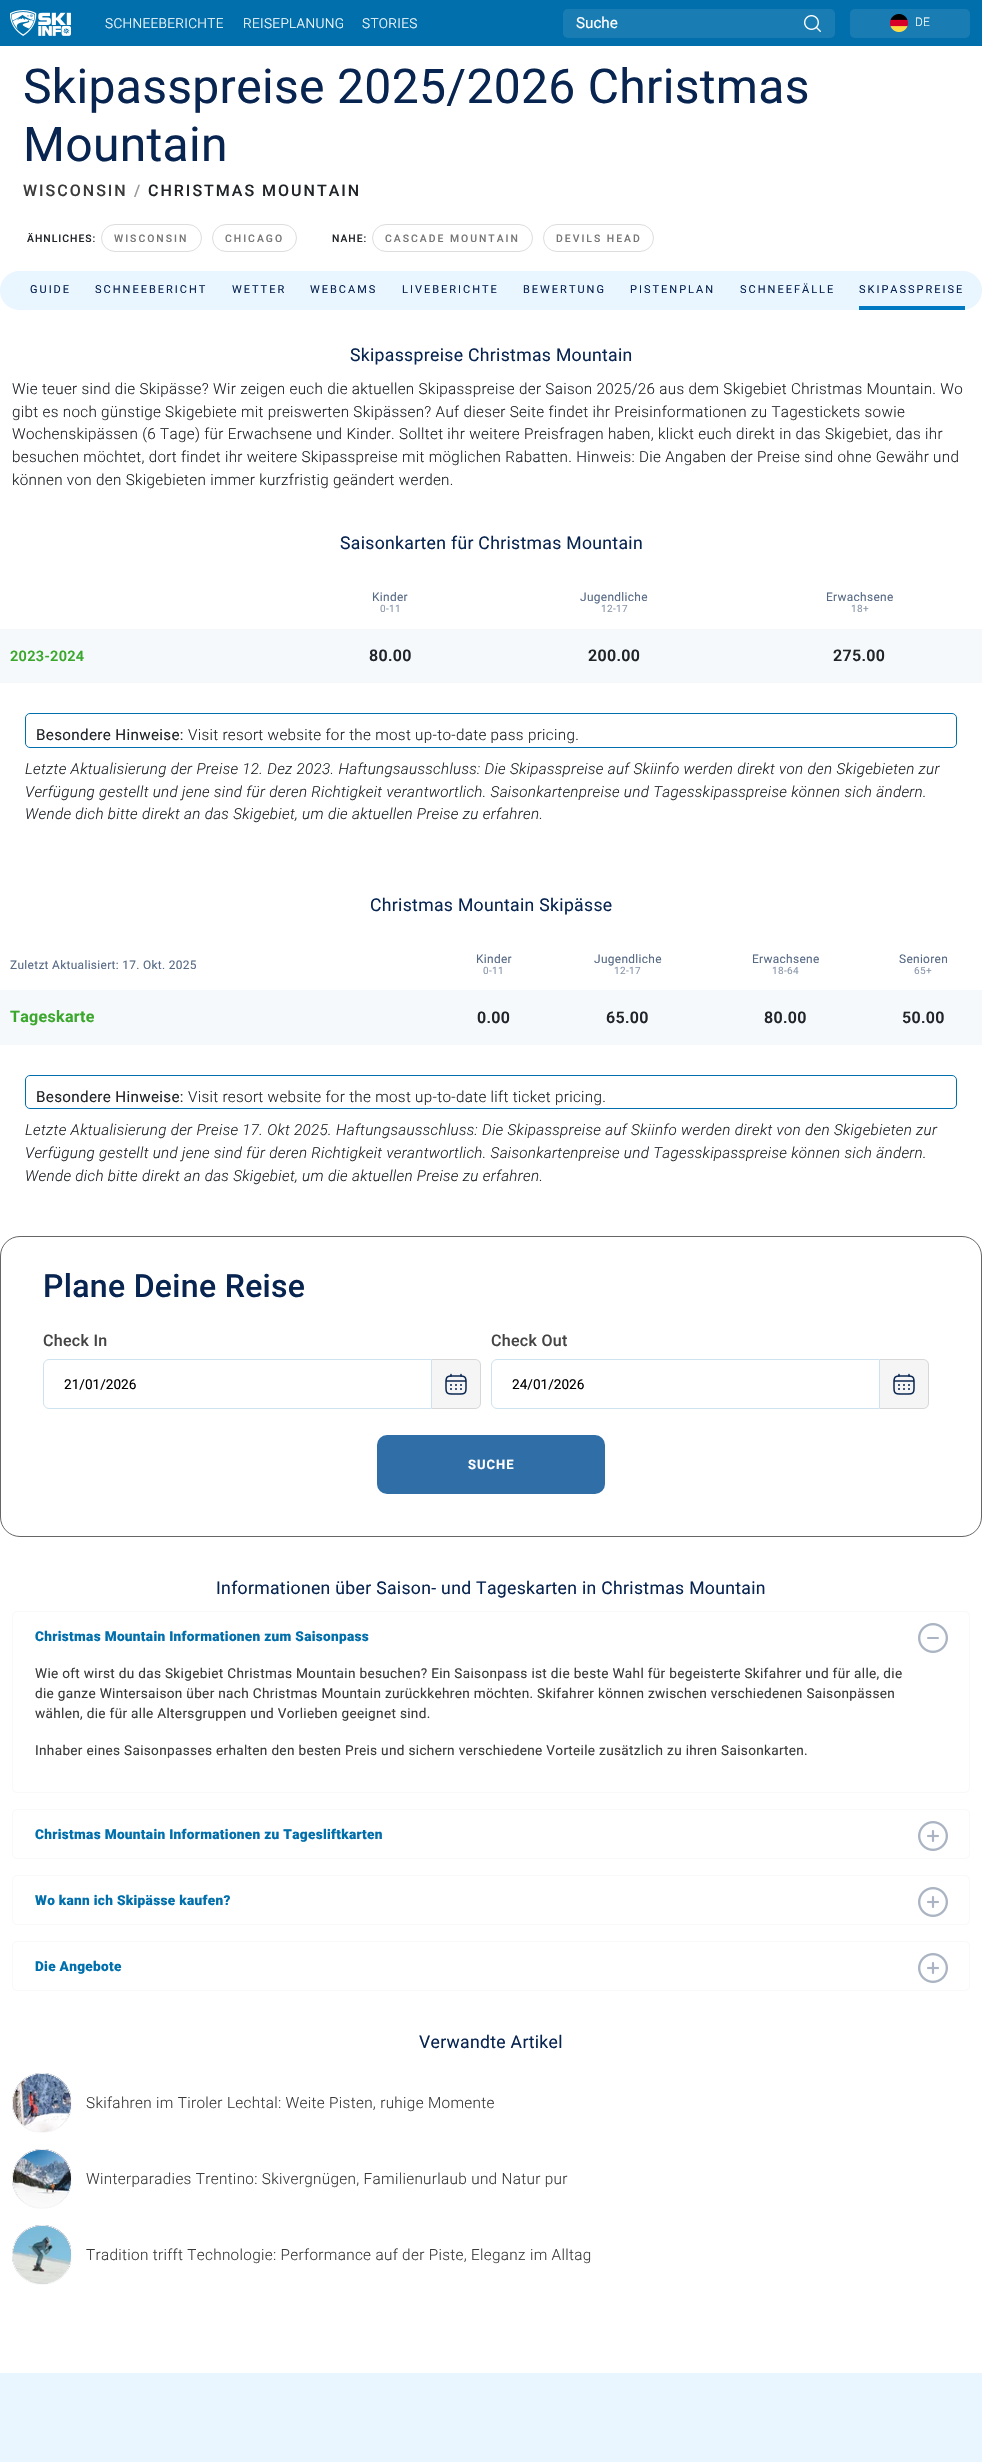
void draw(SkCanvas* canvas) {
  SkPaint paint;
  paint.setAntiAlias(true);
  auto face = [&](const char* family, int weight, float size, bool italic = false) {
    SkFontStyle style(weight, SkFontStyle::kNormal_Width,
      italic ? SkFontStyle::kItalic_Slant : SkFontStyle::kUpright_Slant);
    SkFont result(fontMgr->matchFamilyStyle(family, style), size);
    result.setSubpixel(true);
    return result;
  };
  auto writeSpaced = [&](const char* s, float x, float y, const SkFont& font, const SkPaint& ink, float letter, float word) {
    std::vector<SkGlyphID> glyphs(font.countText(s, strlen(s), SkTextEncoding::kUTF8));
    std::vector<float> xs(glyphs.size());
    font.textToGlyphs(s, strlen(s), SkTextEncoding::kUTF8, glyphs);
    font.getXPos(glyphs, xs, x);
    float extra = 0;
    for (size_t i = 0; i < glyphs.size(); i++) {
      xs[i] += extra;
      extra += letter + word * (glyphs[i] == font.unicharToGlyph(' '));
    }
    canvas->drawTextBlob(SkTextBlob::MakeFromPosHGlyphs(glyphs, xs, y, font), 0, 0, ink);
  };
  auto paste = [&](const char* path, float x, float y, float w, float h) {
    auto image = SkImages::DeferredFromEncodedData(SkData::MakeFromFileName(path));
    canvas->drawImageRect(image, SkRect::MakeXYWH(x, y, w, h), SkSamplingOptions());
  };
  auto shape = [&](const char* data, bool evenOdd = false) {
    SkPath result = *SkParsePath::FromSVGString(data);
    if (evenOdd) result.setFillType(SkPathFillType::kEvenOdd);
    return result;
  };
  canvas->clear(0xffffffff);
  paint.setColor(0xff006fac);
  canvas->drawRect(SkRect::MakeXYWH(0, 0, 982, 46), paint);
  paste("img/1.png", 10, 10, 61, 26);
  paint.setColor(0xff197db4);
  canvas->drawRoundRect(SkRect::MakeXYWH(563, 9, 272, 29), 5, 5, paint);
  paste("img/2.png", 804, 15, 17, 17);
  canvas->drawRoundRect(SkRect::MakeXYWH(850, 9, 120, 29), 5, 5, paint);
  paste("img/3.png", 890, 14, 18, 18);
  paint.setStroke(true);
  paint.setStrokeWidth(1);
  paint.setColor(0xffdddddd);
  canvas->drawRoundRect(SkRect::MakeXYWH(101.5f, 224.5f, 100, 27), 13.5f, 13.5f, paint);
  canvas->drawRoundRect(SkRect::MakeXYWH(212.5f, 224.5f, 84, 27), 13.5f, 13.5f, paint);
  canvas->drawRoundRect(SkRect::MakeXYWH(372.5f, 224.5f, 160, 27), 13.5f, 13.5f, paint);
  canvas->drawRoundRect(SkRect::MakeXYWH(543.5f, 224.5f, 110, 27), 13.5f, 13.5f, paint);
  paint.setStroke(false);
  paint.setColor(0xffe9f5ff);
  canvas->drawRoundRect(SkRect::MakeXYWH(0, 271, 982, 39), 19.5f, 19.5f, paint);
  paint.setColor(0xff0079c2);
  canvas->drawRect(SkRect::MakeXYWH(859, 306, 106, 4), paint);
  paint.setColor(0xfff5f9fc);
  canvas->drawRect(SkRect::MakeXYWH(0, 629, 982, 54), paint);
  paint.setStroke(true);
  paint.setColor(0xff006fac);
  canvas->drawRoundRect(SkRect::MakeXYWH(25.5f, 713.5f, 931, 34), 4.5f, 4.5f, paint);
  paint.setStroke(false);
  paint.setColor(0xfff5f9fc);
  canvas->drawRect(SkRect::MakeXYWH(0, 990, 982, 55), paint);
  paint.setStroke(true);
  paint.setColor(0xff006fac);
  canvas->drawRoundRect(SkRect::MakeXYWH(25.5f, 1075.5f, 931, 33), 4.5f, 4.5f, paint);
  paint.setColor(0xff666666);
  canvas->drawRoundRect(SkRect::MakeXYWH(0.5f, 1236.5f, 981, 300), 19.5f, 19.5f, paint);
  paint.setColor(0xffcee3ef);
  canvas->drawPath(shape("M49 1359.5H431.5V1408.5H49C46 1408.5 43.5 1406 43.5 1403V1365C43.5 1362 46 1359.5 49 1359.5Z"), paint);
  paint.setStroke(false);
  paint.setColor(0xfff5f5f5);
  canvas->drawPath(shape("M432 1359H475C478.5 1359 481 1361.5 481 1365V1403C481 1406.5 478.5 1409 475 1409H432Z"), paint);
  paint.setColor(0xffd7d7d7);
  canvas->drawPath(shape("M432 1359H475C478 1359 481 1362 481 1365V1403C481 1406 478 1409 475 1409H432ZM432 1360H475C478 1360 480 1362 480 1365V1403C480 1406 478 1408 475 1408H432Z", true), paint);
  paste("img/4.png", 445, 1373, 22, 22);
  paint.setStroke(true);
  paint.setColor(0xffcee3ef);
  canvas->drawPath(shape("M497 1359.5H879.5V1408.5H497C494 1408.5 491.5 1406 491.5 1403V1365C491.5 1362 494 1359.5 497 1359.5Z"), paint);
  paint.setStroke(false);
  paint.setColor(0xfff5f5f5);
  canvas->drawPath(shape("M880 1359H923C926.5 1359 929 1361.5 929 1365V1403C929 1406.5 926.5 1409 923 1409H880Z"), paint);
  paint.setColor(0xffd7d7d7);
  canvas->drawPath(shape("M880 1359H923C926 1359 929 1362 929 1365V1403C929 1406 926 1409 923 1409H880ZM880 1360H923C926 1360 928 1362 928 1365V1403C928 1406 926 1408 923 1408H880Z", true), paint);
  paste("img/4.png", 893, 1373, 22, 22);
  paint.setColor(0xff2f6ea7);
  canvas->drawRoundRect(SkRect::MakeXYWH(377, 1435, 228, 59), 10, 10, paint);
  paint.setStroke(true);
  paint.setColor(0xfff9f9f9);
  canvas->drawRoundRect(SkRect::MakeXYWH(12.5f, 1611.5f, 957, 181), 4.5f, 4.5f, paint);
  paste("img/5.png", 918, 1623, 30, 30);
  canvas->drawRoundRect(SkRect::MakeXYWH(12.5f, 1809.5f, 957, 49), 4.5f, 4.5f, paint);
  paste("img/6.png", 918, 1821, 30, 30);
  canvas->drawRoundRect(SkRect::MakeXYWH(12.5f, 1875.5f, 957, 49), 4.5f, 4.5f, paint);
  paste("img/6.png", 918, 1887, 30, 30);
  canvas->drawRoundRect(SkRect::MakeXYWH(12.5f, 1941.5f, 957, 49), 4.5f, 4.5f, paint);
  paste("img/6.png", 918, 1953, 30, 30);
  paste("img/7.png", 12, 2073, 59, 59);
  canvas->drawCircle(42, 2103, 29.5f, paint);
  paste("img/8.png", 13, 2074, 58, 58);
  paste("img/9.png", 12, 2149, 59, 59);
  canvas->drawCircle(42, 2179, 29.5f, paint);
  paste("img/10.png", 13, 2150, 58, 55);
  paste("img/11.png", 12, 2225, 59, 59);
  canvas->drawCircle(42, 2255, 29.5f, paint);
  paste("img/12.png", 13, 2226, 58, 58);
  paint.setStroke(false);
  paint.setColor(0xffe9f5ff);
  canvas->drawRect(SkRect::MakeXYWH(0, 2373, 982, 89), paint);
  auto f0 = face("Roboto", 300, 13.6f);
  paint.setColor(0xffffffff);
  {
    const struct { const char* s; float x, y; } items[] = {
      {"SCHNEEBERICHTE", 105, 28},
      {"REISEPLANUNG", 243, 28},
      {"STORIES", 362, 28},
    };
    for (auto [s, x, y] : items) {
      writeSpaced(s, x, y, f0, paint, 0.32f, 0);
    }
  }
  auto f1 = face("Roboto", 400, 15.2f);
  canvas->drawString("Suche", 576, 28, f1, paint);
  auto f2 = face("Roboto", 300, 11.9f);
  writeSpaced("DE", 915, 26, f2, paint, 0.32f, 0);
  auto f3 = face("Roboto", 400, 48);
  paint.setColor(0xff082450);
  writeSpaced("Skipasspreise 2025/2026 Christmas", 23, 103, f3, paint, 0.32f, 0);
  writeSpaced("Mountain", 23, 161, f3, paint, 0.32f, 0);
  auto f4 = face("Roboto", 500, 16);
  paint.setColor(0xff3b3b3b);
  writeSpaced("WISCONSIN", 23, 196, f4, paint, 2, 0);
  paint.setColor(0xff999999);
  writeSpaced("/", 134, 196, f4, paint, 2, 0);
  paint.setColor(0xff212529);
  writeSpaced("CHRISTMAS MOUNTAIN", 148, 196, f4, paint, 2, 0);
  auto f5 = face("Roboto", 500, 10.4f);
  writeSpaced("ÄHNLICHES:", 27, 242, f5, paint, 1, 0);
  paint.setColor(0xff777777);
  writeSpaced("WISCONSIN", 114, 242, f5, paint, 2, 0);
  writeSpaced("CHICAGO", 225, 242, f5, paint, 2, 0);
  paint.setColor(0xff212529);
  writeSpaced("NAHE:", 332, 242, f5, paint, 1, 0);
  paint.setColor(0xff777777);
  writeSpaced("CASCADE MOUNTAIN", 385, 242, f5, paint, 2, 0);
  writeSpaced("DEVILS HEAD", 556, 242, f5, paint, 2, 0);
  auto f6 = face("Roboto", 400, 11);
  paint.setColor(0xff082450);
  {
    const struct { const char* s; float x, y; } items[] = {
      {"GUIDE", 30, 293},
      {"SCHNEEBERICHT", 95, 293},
      {"WETTER", 232, 293},
      {"WEBCAMS", 310, 293},
      {"LIVEBERICHTE", 402, 293},
      {"BEWERTUNG", 523, 293},
      {"PISTENPLAN", 630, 293},
      {"SCHNEEFÄLLE", 740, 293},
      {"SKIPASSPREISE", 859, 293},
    };
    for (auto [s, x, y] : items) {
      writeSpaced(s, x, y, f6, paint, 2, 0);
    }
  }
  auto f7 = face("Roboto", 400, 17.6f);
  writeSpaced("Skipasspreise Christmas Mountain", 350, 361, f7, paint, 0.32f, 0);
  auto f8 = face("Roboto", 300, 15.2f);
  paint.setColor(0xff212529);
  {
    const struct { const char* s; float x, y; } items[] = {
      {"Wie teuer sind die Skipässe? Wir zeigen euch die aktuellen Skipasspreise der Saison 2025/26 aus dem Skigebiet Christmas Mountain. Wo", 12, 394},
      {"gibt es noch günstige Skigebiete mit preiswerten Skipässen? Auf dieser Seite findet ihr Preisinformationen zu Tagestickets sowie", 12, 417},
      {"Wochenskipässen (6 Tage) für Erwachsene und Kinder. Solltet ihr weitere Preisfragen haben, klickt euch direkt in das Skigebiet, das ihr", 12, 439},
      {"besuchen möchtet, dort findet ihr weitere Skipasspreise mit möglichen Rabatten. Hinweis: Die Angaben der Preise sind ohne Gewähr und", 12, 462},
      {"können von den Skigebieten immer kurzfristig geändert werden.", 12, 485},
    };
    for (auto [s, x, y] : items) {
      writeSpaced(s, x, y, f8, paint, 0.32f, 0);
    }
  }
  paint.setColor(0xff082450);
  writeSpaced("Saisonkarten für Christmas Mountain", 340, 549, f7, paint, 0.32f, 0);
  auto f9 = face("Roboto", 400, 11.9f);
  paint.setColor(0xff576a85);
  writeSpaced("Kinder", 372, 601, f9, paint, 0.32f, 0);
  auto f10 = face("Roboto", 400, 10);
  paint.setColor(0xff8997aa);
  writeSpaced("0-11", 380, 612, f10, paint, 0.32f, 0);
  paint.setColor(0xff576a85);
  writeSpaced("Jugendliche", 580, 601, f9, paint, 0.32f, 0);
  paint.setColor(0xff8997aa);
  writeSpaced("12-17", 601, 612, f10, paint, 0.32f, 0);
  paint.setColor(0xff576a85);
  writeSpaced("Erwachsene", 826, 601, f9, paint, 0.32f, 0);
  paint.setColor(0xff8997aa);
  writeSpaced("18+", 851, 612, f10, paint, 0.32f, 0);
  auto f11 = face("Roboto", 600, 14.5f);
  paint.setColor(0xff3ba82d);
  writeSpaced("2023-2024", 10, 661, f11, paint, 0.32f, 0);
  auto f12 = face("Roboto", 600, 16);
  paint.setColor(0xff212529);
  {
    const struct { const char* s; float x, y; } items[] = {
      {"80.00", 369, 661},
      {"200.00", 588, 661},
      {"275.00", 833, 661},
    };
    for (auto [s, x, y] : items) {
      writeSpaced(s, x, y, f12, paint, 0.32f, 0);
    }
  }
  writeSpaced("Besondere Hinweise:", 36, 740, f1, paint, 0.32f, 0);
  writeSpaced("Visit resort website for the most up-to-date pass pricing.", 188, 740, f8, paint, 0.32f, 0);
  auto f13 = face("Roboto", 300, 15.2f, true);
  {
    const struct { const char* s; float x, y; } items[] = {
      {"Letzte Aktualisierung der Preise 12. Dez 2023. Haftungsausschluss: Die Skipasspreise auf Skiinfo werden direkt von den Skigebieten zur", 25, 774},
      {"Verfügung gestellt und jene sind für deren Richtigkeit verantwortlich. Saisonkartenpreise und Tagesskipasspreise können sich ändern.", 25, 797},
      {"Wende dich bitte direkt an das Skigebiet, um die aktuellen Preise zu erfahren.", 25, 819},
    };
    for (auto [s, x, y] : items) {
      writeSpaced(s, x, y, f13, paint, 0.32f, 0);
    }
  }
  paint.setColor(0xff082450);
  writeSpaced("Christmas Mountain Skipässe", 370, 911, f7, paint, 0.32f, 0);
  paint.setColor(0xff576a85);
  writeSpaced("Zuletzt Aktualisiert: 17. Okt. 2025", 10, 969, f9, paint, 0.32f, 0);
  writeSpaced("Kinder", 476, 963, f9, paint, 0.32f, 0);
  paint.setColor(0xff8997aa);
  writeSpaced("0-11", 483, 974, f10, paint, 0.32f, 0);
  paint.setColor(0xff576a85);
  writeSpaced("Jugendliche", 594, 963, f9, paint, 0.32f, 0);
  paint.setColor(0xff8997aa);
  writeSpaced("12-17", 614, 974, f10, paint, 0.32f, 0);
  paint.setColor(0xff576a85);
  writeSpaced("Erwachsene", 752, 963, f9, paint, 0.32f, 0);
  paint.setColor(0xff8997aa);
  writeSpaced("18-64", 772, 974, f10, paint, 0.32f, 0);
  paint.setColor(0xff576a85);
  writeSpaced("Senioren", 899, 963, f9, paint, 0.32f, 0);
  paint.setColor(0xff8997aa);
  writeSpaced("65+", 914, 974, f10, paint, 0.32f, 0);
  auto f14 = face("Roboto", 700, 16);
  paint.setColor(0xff3ba82d);
  writeSpaced("Tageskarte", 10, 1022, f14, paint, 0.32f, 0);
  paint.setColor(0xff212529);
  {
    const struct { const char* s; float x, y; } items[] = {
      {"0.00", 477, 1023},
      {"65.00", 606, 1023},
      {"80.00", 764, 1023},
      {"50.00", 902, 1023},
    };
    for (auto [s, x, y] : items) {
      writeSpaced(s, x, y, f12, paint, 0.32f, 0);
    }
  }
  writeSpaced("Besondere Hinweise:", 36, 1102, f1, paint, 0.32f, 0);
  writeSpaced("Visit resort website for the most up-to-date lift ticket pricing.", 188, 1102, f8, paint, 0.32f, 0);
  {
    const struct { const char* s; float x, y; } items[] = {
      {"Letzte Aktualisierung der Preise 17. Okt 2025. Haftungsausschluss: Die Skipasspreise auf Skiinfo werden direkt von den Skigebieten zur", 25, 1135},
      {"Verfügung gestellt und jene sind für deren Richtigkeit verantwortlich. Saisonkartenpreise und Tagesskipasspreise können sich ändern.", 25, 1158},
      {"Wende dich bitte direkt an das Skigebiet, um die aktuellen Preise zu erfahren.", 25, 1181},
    };
    for (auto [s, x, y] : items) {
      writeSpaced(s, x, y, f13, paint, 0.32f, 0);
    }
  }
  auto f15 = face("Roboto", 500, 32);
  paint.setColor(0xff082450);
  writeSpaced("Plane Deine Reise", 43, 1297, f15, paint, 0.32f, 0);
  paint.setColor(0xff444444);
  writeSpaced("Check In", 43, 1346, f4, paint, 0.32f, 0);
  auto f16 = face("Roboto", 400, 13.6f);
  paint.setColor(0xff000000);
  canvas->drawString("21/01/2026", 64, 1389, f16, paint);
  paint.setColor(0xff444444);
  writeSpaced("Check Out", 491, 1346, f4, paint, 0.32f, 0);
  paint.setColor(0xff000000);
  canvas->drawString("24/01/2026", 512, 1389, f16, paint);
  auto f17 = face("Roboto", 700, 13);
  paint.setColor(0xffffffff);
  writeSpaced("SUCHE", 468, 1469, f17, paint, 1, 0);
  paint.setColor(0xff082450);
  writeSpaced("Informationen über Saison- und Tageskarten in Christmas Mountain", 216, 1594, f7, paint, 0.32f, 0);
  auto f18 = face("Roboto", 900, 13.6f);
  paint.setColor(0xff006fac);
  writeSpaced("Christmas Mountain Informationen zum Saisonpass", 35, 1641, f18, paint, 0.32f, 0);
  paint.setColor(0xff3b3b3b);
  {
    const struct { const char* s; float x, y; } items[] = {
      {"Wie oft wirst du das Skigebiet Christmas Mountain besuchen? Ein Saisonpass ist die beste Wahl für begeisterte Skifahrer und für alle, die", 35, 1678},
      {"die ganze Wintersaison über nach Christmas Mountain zurückkehren möchten. Skifahrer können zwischen verschiedenen Saisonpässen", 35, 1698},
      {"wählen, die für alle Altersgruppen und Vorlieben geeignet sind.", 35, 1718},
      {"Inhaber eines Saisonpasses erhalten den besten Preis und sichern verschiedene Vorteile zusätzlich zu ihren Saisonkarten.", 35, 1755},
    };
    for (auto [s, x, y] : items) {
      writeSpaced(s, x, y, f16, paint, 0.32f, 0);
    }
  }
  paint.setColor(0xff006fac);
  {
    const struct { const char* s; float x, y; } items[] = {
      {"Christmas Mountain Informationen zu Tagesliftkarten", 35, 1839},
      {"Wo kann ich Skipässe kaufen?", 35, 1905},
      {"Die Angebote", 35, 1971},
    };
    for (auto [s, x, y] : items) {
      writeSpaced(s, x, y, f18, paint, 0.32f, 0);
    }
  }
  paint.setColor(0xff082450);
  writeSpaced("Verwandte Artikel", 419, 2048, f7, paint, 0.32f, 0);
  auto f19 = face("Roboto", 300, 15.3f);
  paint.setColor(0xff3b3b3b);
  {
    const struct { const char* s; float x, y; } items[] = {
      {"Skifahren im Tiroler Lechtal: Weite Pisten, ruhige Momente", 86, 2108},
      {"Winterparadies Trentino: Skivergnügen, Familienurlaub und Natur pur", 86, 2184},
      {"Tradition trifft Technologie: Performance auf der Piste, Eleganz im Alltag", 86, 2260},
    };
    for (auto [s, x, y] : items) {
      writeSpaced(s, x, y, f19, paint, 0.32f, 0);
    }
  }
}
